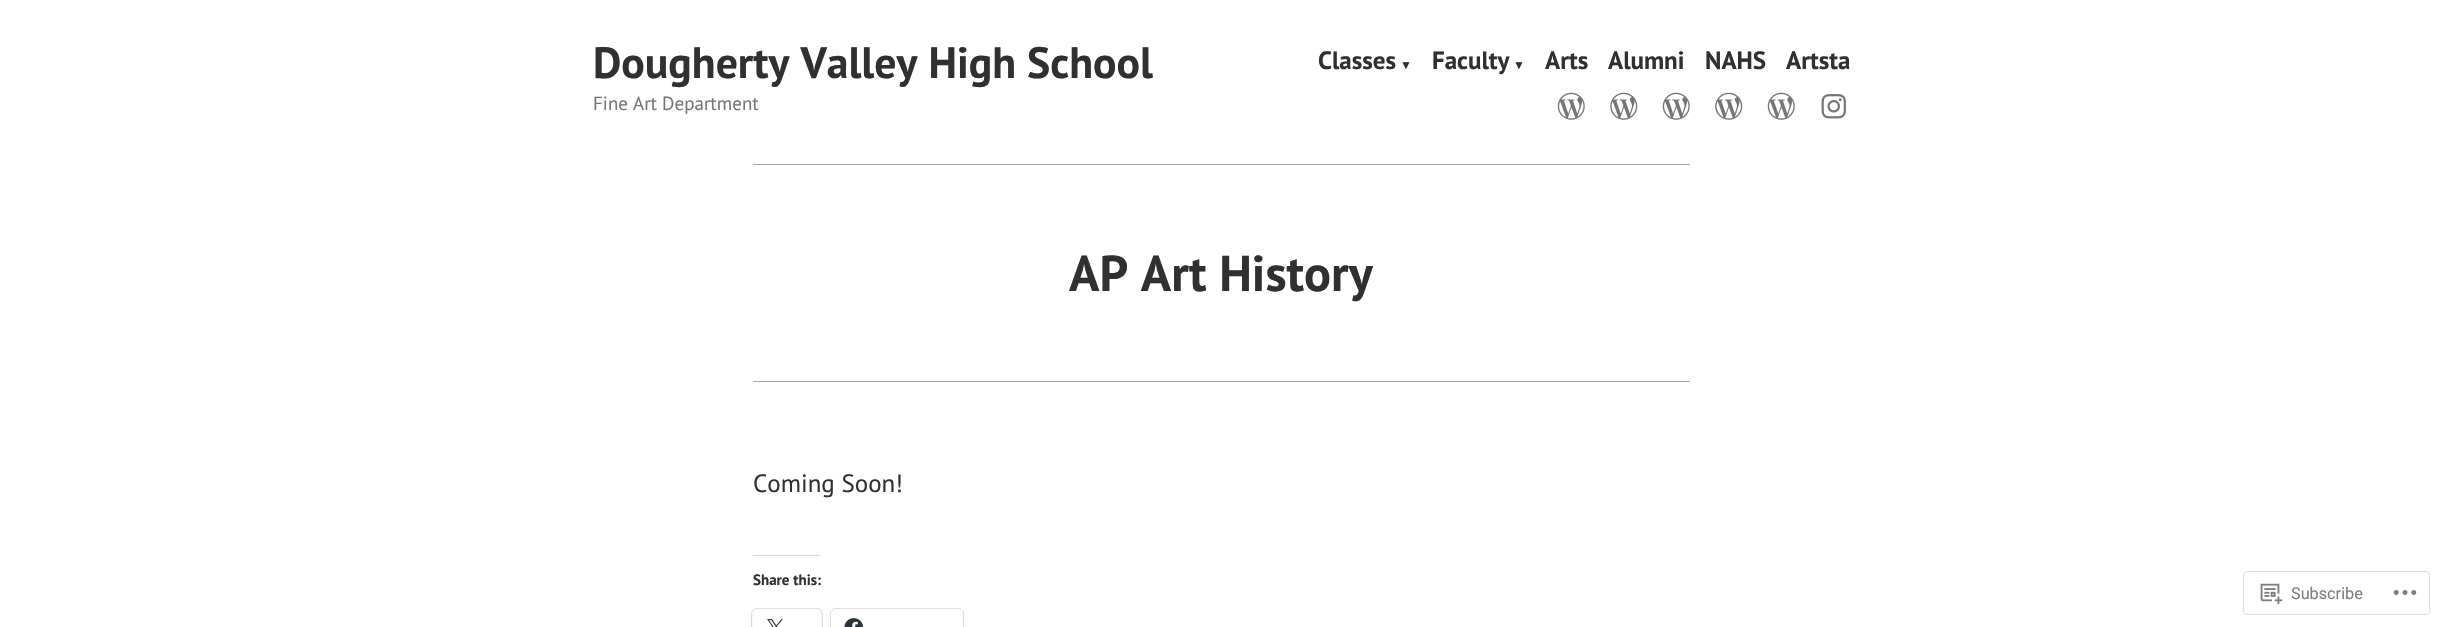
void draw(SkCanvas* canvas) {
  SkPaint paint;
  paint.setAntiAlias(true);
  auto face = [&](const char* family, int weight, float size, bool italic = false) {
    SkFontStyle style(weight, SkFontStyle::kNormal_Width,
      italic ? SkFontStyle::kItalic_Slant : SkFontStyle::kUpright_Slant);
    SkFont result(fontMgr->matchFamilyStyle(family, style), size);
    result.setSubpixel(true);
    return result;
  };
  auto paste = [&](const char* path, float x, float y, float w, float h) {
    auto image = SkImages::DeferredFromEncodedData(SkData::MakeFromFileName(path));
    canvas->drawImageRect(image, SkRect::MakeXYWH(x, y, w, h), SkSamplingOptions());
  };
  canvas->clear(0xffffffff);
  paste("img/1.png", 1557, 92, 28, 28);
  paste("img/2.png", 1610, 92, 28, 28);
  paste("img/1.png", 1662, 92, 28, 28);
  paste("img/2.png", 1715, 92, 28, 28);
  paste("img/1.png", 1767, 92, 28, 28);
  paste("img/3.png", 1821, 94, 25, 25);
  {
    const struct { float x, y, w, h; SkColor color; } items[] = {
      {753, 164, 937, 1, 0xffa5a5a5},
      {753, 381, 937, 1, 0xffa5a5a5},
      {753, 555, 67, 1, 0xffdcdcde},
    };
    for (auto [x, y, w, h, color] : items) {
      paint.setColor(color);
      canvas->drawRect(SkRect::MakeXYWH(x, y, w, h), paint);
    }
  }
  paint.setStroke(true);
  paint.setStrokeWidth(1);
  paint.setColor(0xffe0e0e0);
  canvas->drawRoundRect(SkRect::MakeXYWH(751.5f, 608.5f, 71, 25), 5.5f, 5.5f, paint);
  paint.setStroke(false);
  paint.setColor(0x1f000000);
  paint.setMaskFilter(SkMaskFilter::MakeBlur(kNormal_SkBlurStyle, 1));
  canvas->drawRoundRect(SkRect::MakeXYWH(753, 610, 68, 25), 5, 5, paint);
  paint.setMaskFilter(nullptr);
  paint.setColor(0xffffffff);
  canvas->drawRoundRect(SkRect::MakeXYWH(753, 609, 68, 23), 5, 5, paint);
  paste("img/4.png", 767, 619, 16, 8);
  paint.setStroke(true);
  paint.setColor(0xffe0e0e0);
  canvas->drawRoundRect(SkRect::MakeXYWH(830.5f, 608.5f, 133, 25), 5.5f, 5.5f, paint);
  paint.setStroke(false);
  paint.setColor(0x1f000000);
  paint.setMaskFilter(SkMaskFilter::MakeBlur(kNormal_SkBlurStyle, 1));
  canvas->drawRoundRect(SkRect::MakeXYWH(831, 610, 132, 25), 5, 5, paint);
  paint.setMaskFilter(nullptr);
  paint.setColor(0xffffffff);
  canvas->drawRoundRect(SkRect::MakeXYWH(831, 609, 132, 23), 5, 5, paint);
  paste("img/5.png", 844, 618, 20, 9);
  paint.setStroke(true);
  paint.setColor(0xffdddddf);
  canvas->drawRoundRect(SkRect::MakeXYWH(2243.5f, 571.5f, 186, 43), 3.5f, 3.5f, paint);
  paste("img/6.png", 2260, 583, 23, 22);
  paste("img/7.png", 2393, 590, 24, 5);
  auto f0 = face("PT Sans", 700, 43.75f);
  paint.setStroke(false);
  paint.setColor(0xff303030);
  canvas->drawString("Dougherty Valley High School", 593, 78, f0, paint);
  auto f1 = face("PT Sans", 700, 25);
  canvas->drawString("Classes", 1318, 69, f1, paint);
  auto f2 = face("Liberation Sans", 700, 12);
  canvas->drawString("▼", 1400, 69, f2, paint);
  canvas->drawString("Faculty", 1432, 69, f1, paint);
  canvas->drawString("▼", 1513, 69, f2, paint);
  {
    const struct { const char* s; float x, y; } items[] = {
      {"Arts", 1545, 69},
      {"Alumni", 1608, 69},
      {"NAHS", 1705, 69},
      {"Artsta", 1786, 69},
    };
    for (auto [s, x, y] : items) {
      canvas->drawString(s, x, y, f1, paint);
    }
  }
  auto f3 = face("PT Sans", 400, 19);
  paint.setColor(0xff757575);
  canvas->drawString("Fine Art Department", 593, 110, f3, paint);
  auto f4 = face("PT Sans", 700, 50.25f);
  paint.setColor(0xff303030);
  canvas->drawString("AP Art History", 1069, 291, f4, paint);
  auto f5 = face("PT Sans", 400, 25);
  canvas->drawString("Coming Soon!", 753, 492, f5, paint);
  auto f6 = face("PT Sans", 700, 15);
  canvas->drawString("Share this:", 753, 585, f6, paint);
  auto f7 = face("Roboto", 400, 16.25f);
  paint.setColor(0xff7b7f85);
  canvas->drawString("Subscribe", 2291, 599, f7, paint);
}
